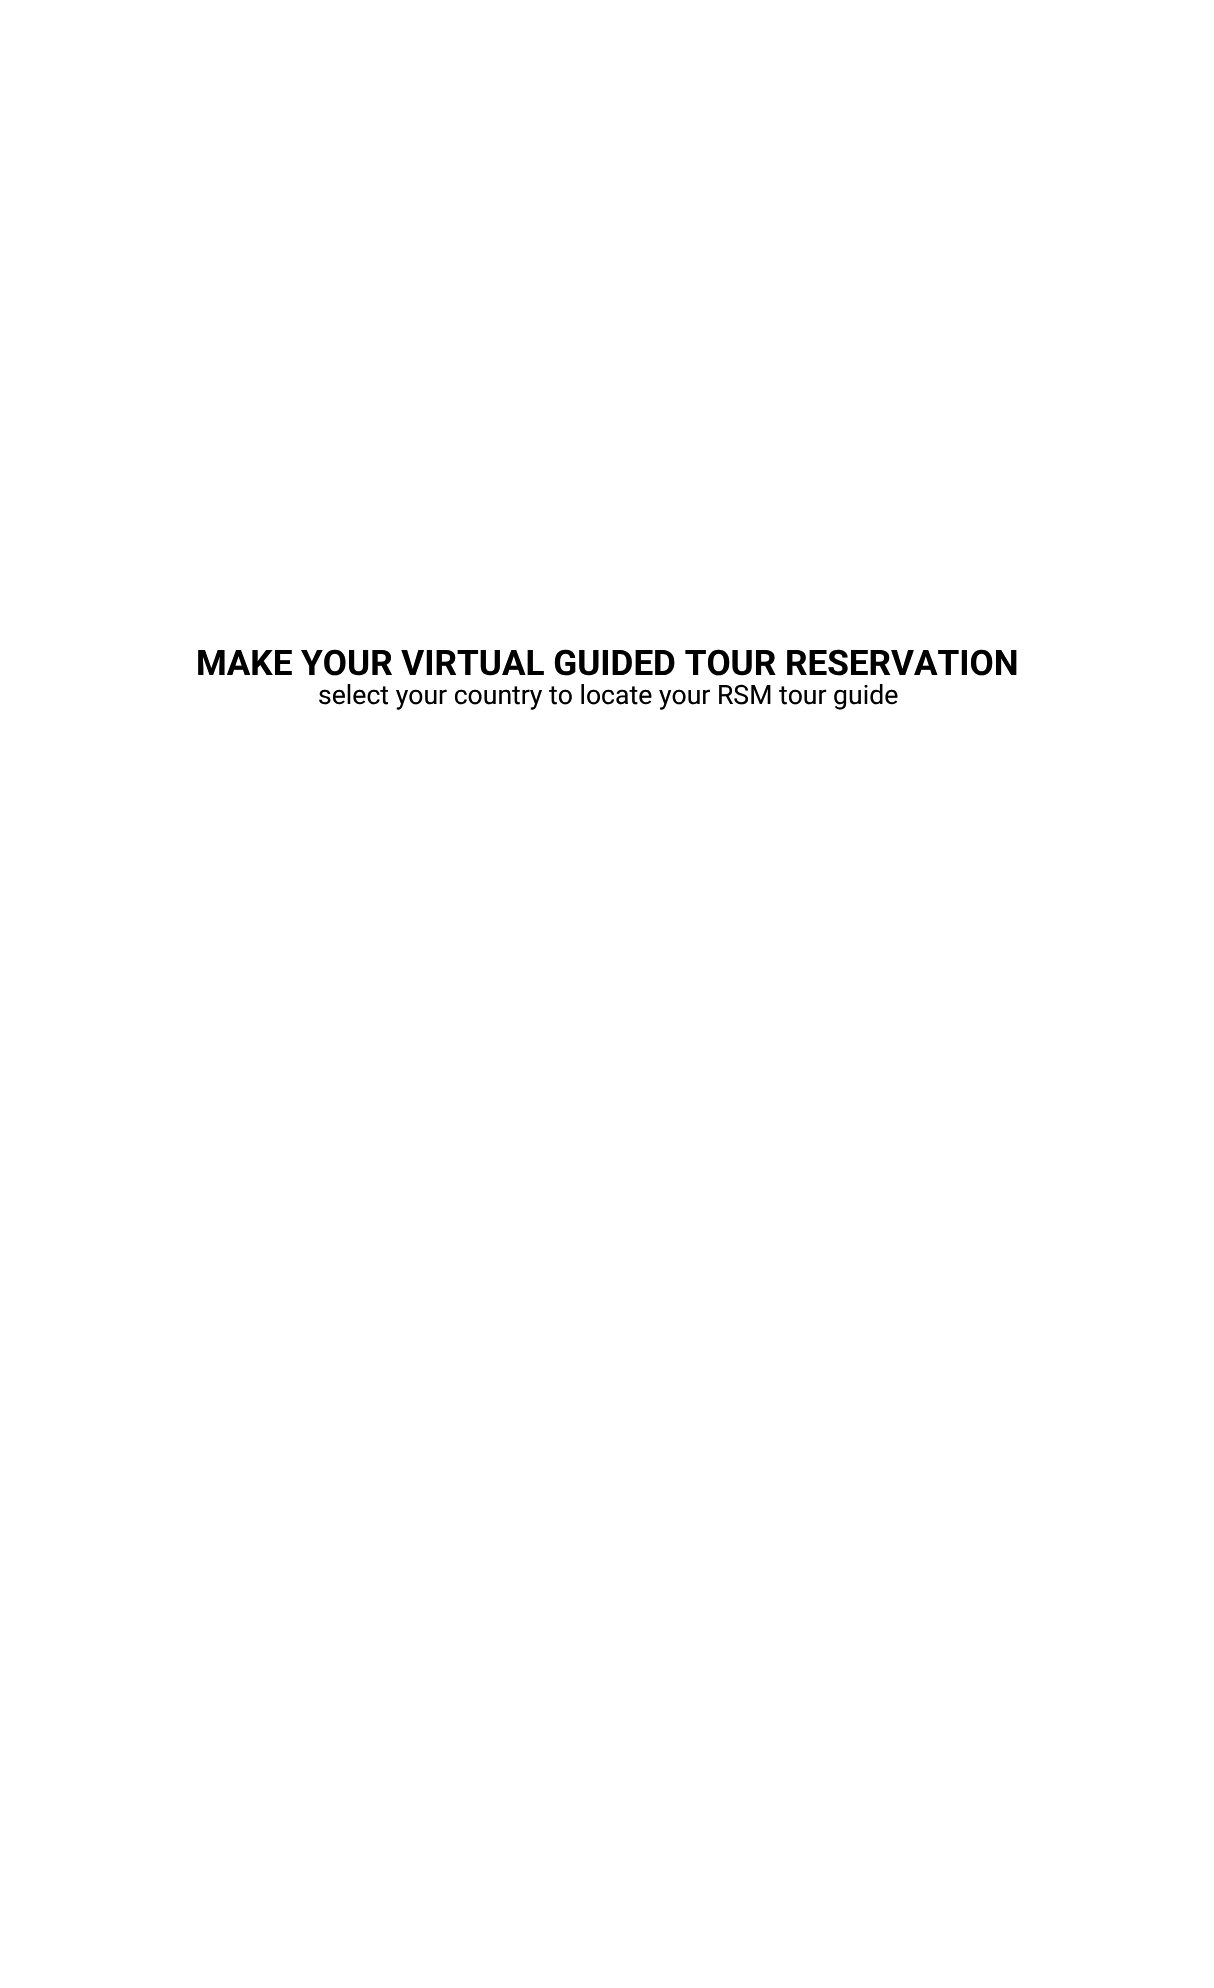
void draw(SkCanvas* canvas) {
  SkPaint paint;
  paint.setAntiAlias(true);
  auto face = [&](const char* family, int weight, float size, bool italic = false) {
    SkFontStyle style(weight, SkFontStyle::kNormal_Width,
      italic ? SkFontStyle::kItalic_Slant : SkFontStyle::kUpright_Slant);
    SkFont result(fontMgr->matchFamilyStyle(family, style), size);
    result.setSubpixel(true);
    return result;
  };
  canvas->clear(0xffffffff);
  auto f0 = face("Roboto", 700, 35.1f);
  paint.setColor(0xff000000);
  canvas->drawString("MAKE YOUR VIRTUAL GUIDED TOUR RESERVATION", 196, 675, f0, paint);
  auto f1 = face("Roboto", 400, 26.6f);
  canvas->drawString("select your country to locate your RSM tour guide", 318, 704, f1, paint);
}
